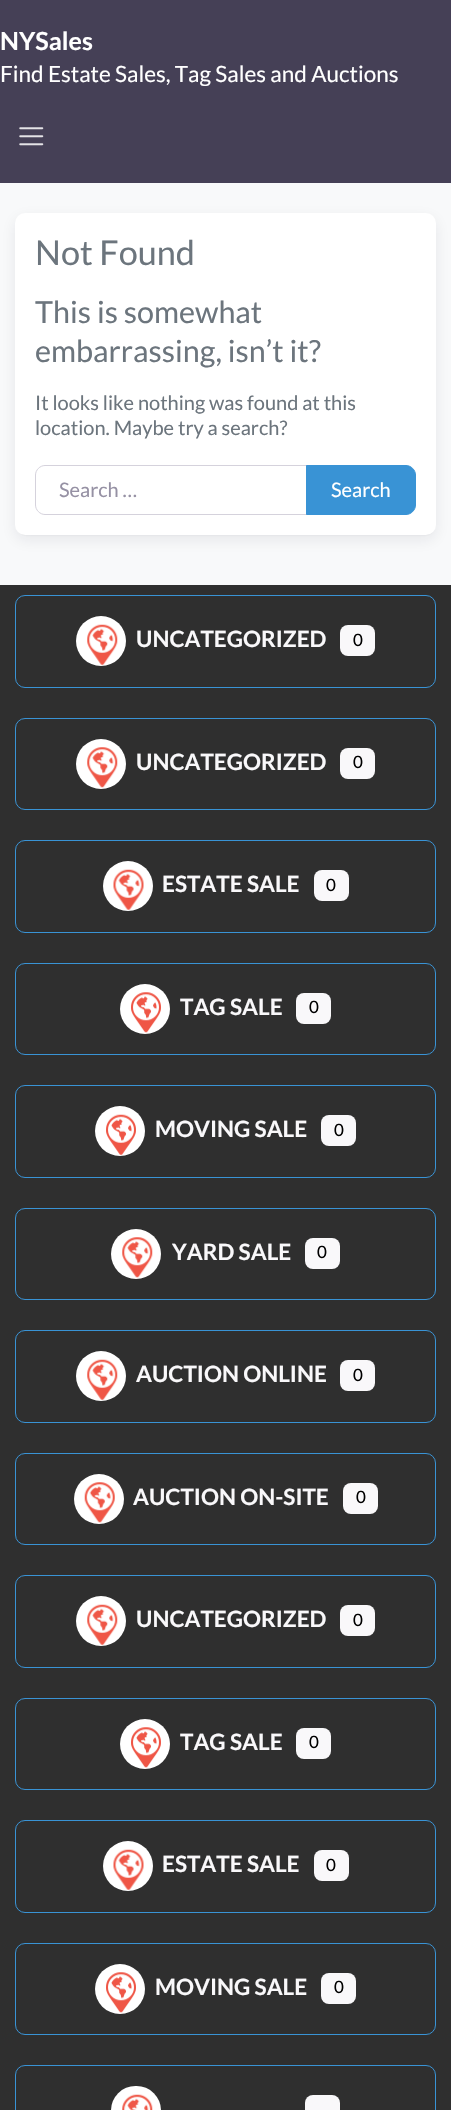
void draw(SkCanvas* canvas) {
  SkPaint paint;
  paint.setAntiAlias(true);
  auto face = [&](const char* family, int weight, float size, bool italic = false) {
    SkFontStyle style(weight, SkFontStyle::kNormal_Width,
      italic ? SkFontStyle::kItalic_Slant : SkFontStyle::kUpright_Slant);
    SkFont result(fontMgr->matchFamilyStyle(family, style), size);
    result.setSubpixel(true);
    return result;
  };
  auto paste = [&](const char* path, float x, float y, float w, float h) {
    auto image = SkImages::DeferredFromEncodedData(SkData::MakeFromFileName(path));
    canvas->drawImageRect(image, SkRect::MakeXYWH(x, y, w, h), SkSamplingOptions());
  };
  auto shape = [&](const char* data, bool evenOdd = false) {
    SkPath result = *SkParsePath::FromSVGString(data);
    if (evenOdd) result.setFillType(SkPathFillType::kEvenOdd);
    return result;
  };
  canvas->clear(0xfff8f9fa);
  paint.setColor(0xff454056);
  canvas->drawRect(SkRect::MakeXYWH(0, 0, 451, 183), paint);
  paste("img/1.png", 19, 127, 25, 19);
  paint.setColor(0x141f1b2d);
  paint.setMaskFilter(SkMaskFilter::MakeBlur(kNormal_SkBlurStyle, 7.5f));
  canvas->drawRoundRect(SkRect::MakeXYWH(15, 218, 421, 322), 10, 10, paint);
  paint.setMaskFilter(nullptr);
  paint.setMaskFilter(SkMaskFilter::MakeBlur(kNormal_SkBlurStyle, 1));
  canvas->drawRoundRect(SkRect::MakeXYWH(18, 218, 416, 317), 8, 8, paint);
  paint.setMaskFilter(nullptr);
  paint.setColor(0xffffffff);
  canvas->drawRoundRect(SkRect::MakeXYWH(15, 213, 421, 322), 10, 10, paint);
  paint.setStroke(true);
  paint.setStrokeWidth(1);
  paint.setColor(0xffd5d2dc);
  canvas->drawPath(shape("M45 465.5H307.5V514.5H45C40 514.5 35.5 510 35.5 505V475C35.5 470 40 465.5 45 465.5Z"), paint);
  paint.setStroke(false);
  paint.setColor(0xff3993d5);
  canvas->drawPath(shape("M306.5 465.5H406C411 465.5 415.5 470 415.5 475V505C415.5 510 411 514.5 406 514.5H306.5Z"), paint);
  paint.setStroke(true);
  canvas->drawPath(shape("M306.5 465.5H406C411 465.5 415.5 470 415.5 475V505C415.5 510 411 514.5 406 514.5H306.5Z"), paint);
  paint.setStroke(false);
  paint.setColor(0xff2f2f2f);
  canvas->drawRect(SkRect::MakeXYWH(0, 585, 451, 1525), paint);
  paint.setStroke(true);
  paint.setColor(0xff3993d5);
  canvas->drawRoundRect(SkRect::MakeXYWH(15.5f, 595.5f, 420, 92), 9.5f, 9.5f, paint);
  paint.setStroke(false);
  paint.setColor(0xffffffff);
  canvas->drawCircle(101, 641, 25, paint);
  paste("img/2.png", 87, 624, 31, 41);
  paint.setColor(0xfff9f8fa);
  canvas->drawRoundRect(SkRect::MakeXYWH(340, 625, 35, 31), 8, 8, paint);
  paint.setStroke(true);
  paint.setColor(0xff3993d5);
  canvas->drawRoundRect(SkRect::MakeXYWH(15.5f, 718.5f, 420, 91), 9.5f, 9.5f, paint);
  paint.setStroke(false);
  paint.setColor(0xffffffff);
  canvas->drawCircle(101, 764, 25, paint);
  paste("img/3.png", 87, 747, 31, 41);
  paint.setColor(0xfff9f8fa);
  canvas->drawRoundRect(SkRect::MakeXYWH(340, 748, 35, 31), 8, 8, paint);
  paint.setStroke(true);
  paint.setColor(0xff3993d5);
  canvas->drawRoundRect(SkRect::MakeXYWH(15.5f, 840.5f, 420, 92), 9.5f, 9.5f, paint);
  paint.setStroke(false);
  paint.setColor(0xffffffff);
  canvas->drawCircle(128, 886, 25, paint);
  paste("img/4.png", 113, 869, 31, 41);
  paint.setColor(0xfff9f8fa);
  canvas->drawRoundRect(SkRect::MakeXYWH(314, 870, 35, 31), 8, 8, paint);
  paint.setStroke(true);
  paint.setColor(0xff3993d5);
  canvas->drawRoundRect(SkRect::MakeXYWH(15.5f, 963.5f, 420, 91), 9.5f, 9.5f, paint);
  paint.setStroke(false);
  paint.setColor(0xffffffff);
  canvas->drawCircle(145, 1009, 25, paint);
  paste("img/5.png", 131, 992, 30, 41);
  paint.setColor(0xfff9f8fa);
  canvas->drawRoundRect(SkRect::MakeXYWH(296, 993, 35, 31), 8, 8, paint);
  paint.setStroke(true);
  paint.setColor(0xff3993d5);
  canvas->drawRoundRect(SkRect::MakeXYWH(15.5f, 1085.5f, 420, 92), 9.5f, 9.5f, paint);
  paint.setStroke(false);
  paint.setColor(0xffffffff);
  canvas->drawCircle(120, 1131, 25, paint);
  paste("img/6.png", 106, 1114, 30, 41);
  paint.setColor(0xfff9f8fa);
  canvas->drawRoundRect(SkRect::MakeXYWH(321, 1115, 35, 31), 8, 8, paint);
  paint.setStroke(true);
  paint.setColor(0xff3993d5);
  canvas->drawRoundRect(SkRect::MakeXYWH(15.5f, 1208.5f, 420, 91), 9.5f, 9.5f, paint);
  paint.setStroke(false);
  paint.setColor(0xffffffff);
  canvas->drawCircle(136, 1254, 25, paint);
  paste("img/3.png", 122, 1237, 31, 41);
  paint.setColor(0xfff9f8fa);
  canvas->drawRoundRect(SkRect::MakeXYWH(305, 1238, 35, 31), 8, 8, paint);
  paint.setStroke(true);
  paint.setColor(0xff3993d5);
  canvas->drawRoundRect(SkRect::MakeXYWH(15.5f, 1330.5f, 420, 92), 9.5f, 9.5f, paint);
  paint.setStroke(false);
  paint.setColor(0xffffffff);
  canvas->drawCircle(101, 1376, 25, paint);
  paste("img/2.png", 87, 1359, 31, 41);
  paint.setColor(0xfff9f8fa);
  canvas->drawRoundRect(SkRect::MakeXYWH(340, 1360, 35, 31), 8, 8, paint);
  paint.setStroke(true);
  paint.setColor(0xff3993d5);
  canvas->drawRoundRect(SkRect::MakeXYWH(15.5f, 1453.5f, 420, 91), 9.5f, 9.5f, paint);
  paint.setStroke(false);
  paint.setColor(0xffffffff);
  canvas->drawCircle(99, 1499, 25, paint);
  paste("img/7.png", 84, 1482, 31, 41);
  paint.setColor(0xfff9f8fa);
  canvas->drawRoundRect(SkRect::MakeXYWH(343, 1483, 35, 31), 8, 8, paint);
  paint.setStroke(true);
  paint.setColor(0xff3993d5);
  canvas->drawRoundRect(SkRect::MakeXYWH(15.5f, 1575.5f, 420, 92), 9.5f, 9.5f, paint);
  paint.setStroke(false);
  paint.setColor(0xffffffff);
  canvas->drawCircle(101, 1621, 25, paint);
  paste("img/2.png", 87, 1604, 31, 41);
  paint.setColor(0xfff9f8fa);
  canvas->drawRoundRect(SkRect::MakeXYWH(340, 1605, 35, 31), 8, 8, paint);
  paint.setStroke(true);
  paint.setColor(0xff3993d5);
  canvas->drawRoundRect(SkRect::MakeXYWH(15.5f, 1698.5f, 420, 91), 9.5f, 9.5f, paint);
  paint.setStroke(false);
  paint.setColor(0xffffffff);
  canvas->drawCircle(145, 1744, 25, paint);
  paste("img/5.png", 131, 1727, 30, 41);
  paint.setColor(0xfff9f8fa);
  canvas->drawRoundRect(SkRect::MakeXYWH(296, 1728, 35, 31), 8, 8, paint);
  paint.setStroke(true);
  paint.setColor(0xff3993d5);
  canvas->drawRoundRect(SkRect::MakeXYWH(15.5f, 1820.5f, 420, 92), 9.5f, 9.5f, paint);
  paint.setStroke(false);
  paint.setColor(0xffffffff);
  canvas->drawCircle(128, 1866, 25, paint);
  paste("img/4.png", 113, 1849, 31, 41);
  paint.setColor(0xfff9f8fa);
  canvas->drawRoundRect(SkRect::MakeXYWH(314, 1850, 35, 31), 8, 8, paint);
  paint.setStroke(true);
  paint.setColor(0xff3993d5);
  canvas->drawRoundRect(SkRect::MakeXYWH(15.5f, 1943.5f, 420, 91), 9.5f, 9.5f, paint);
  paint.setStroke(false);
  paint.setColor(0xffffffff);
  canvas->drawCircle(120, 1989, 25, paint);
  paste("img/5.png", 106, 1972, 30, 41);
  paint.setColor(0xfff9f8fa);
  canvas->drawRoundRect(SkRect::MakeXYWH(321, 1973, 35, 31), 8, 8, paint);
  paint.setStroke(true);
  paint.setColor(0xff3993d5);
  canvas->drawRoundRect(SkRect::MakeXYWH(15.5f, 2065.5f, 420, 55), 9.5f, 9.5f, paint);
  paint.setStroke(false);
  paint.setColor(0xffffffff);
  canvas->drawRoundRect(SkRect::MakeXYWH(111, 2086, 50, 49), 25, 25, paint);
  paste("img/8.png", 122, 2094, 31, 16);
  paint.setColor(0xfff9f8fa);
  canvas->drawRoundRect(SkRect::MakeXYWH(305, 2095, 35, 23), 8, 8, paint);
  auto f0 = face("Lato", 700, 25);
  paint.setColor(0xffffffff);
  canvas->drawString("NYSales", 0, 50, f0, paint);
  auto f1 = face("Lato", 400, 22.5f);
  canvas->drawString("Find Estate Sales, Tag Sales and Auctions", 0, 82, f1, paint);
  auto f2 = face("Lato", 400, 34.25f);
  paint.setColor(0xff6c757d);
  canvas->drawString("Not Found", 35, 265, f2, paint);
  auto f3 = face("Lato", 400, 30.5f);
  canvas->drawString("This is somewhat", 35, 323, f3, paint);
  canvas->drawString("embarrassing, isn’t it?", 35, 362, f3, paint);
  auto f4 = face("Lato", 400, 20);
  canvas->drawString("It looks like nothing was found at this", 35, 410, f4, paint);
  canvas->drawString("location. Maybe try a search?", 35, 435, f4, paint);
  paint.setColor(0xff9691a4);
  canvas->drawString("Search …", 59, 497, f4, paint);
  paint.setColor(0xffffffff);
  canvas->drawString("Search", 331, 497, f4, paint);
  auto f5 = face("Lato", 700, 22.5f);
  paint.setColor(0xfff9f8fa);
  canvas->drawString("UNCATEGORIZED", 136, 647, f5, paint);
  auto f6 = face("Lato", 400, 17);
  paint.setColor(0xff000000);
  canvas->drawString("0", 353, 646, f6, paint);
  paint.setColor(0xfff9f8fa);
  canvas->drawString("UNCATEGORIZED", 136, 770, f5, paint);
  paint.setColor(0xff000000);
  canvas->drawString("0", 353, 768, f6, paint);
  paint.setColor(0xfff9f8fa);
  canvas->drawString("ESTATE SALE", 162, 892, f5, paint);
  paint.setColor(0xff000000);
  canvas->drawString("0", 326, 891, f6, paint);
  paint.setColor(0xfff9f8fa);
  canvas->drawString("TAG SALE", 180, 1015, f5, paint);
  paint.setColor(0xff000000);
  canvas->drawString("0", 309, 1013, f6, paint);
  paint.setColor(0xfff9f8fa);
  canvas->drawString("MOVING SALE", 155, 1137, f5, paint);
  paint.setColor(0xff000000);
  canvas->drawString("0", 334, 1136, f6, paint);
  paint.setColor(0xfff9f8fa);
  canvas->drawString("YARD SALE", 172, 1260, f5, paint);
  paint.setColor(0xff000000);
  canvas->drawString("0", 317, 1258, f6, paint);
  paint.setColor(0xfff9f8fa);
  canvas->drawString("AUCTION ONLINE", 136, 1382, f5, paint);
  paint.setColor(0xff000000);
  canvas->drawString("0", 353, 1381, f6, paint);
  paint.setColor(0xfff9f8fa);
  canvas->drawString("AUCTION ON-SITE", 133, 1505, f5, paint);
  paint.setColor(0xff000000);
  canvas->drawString("0", 356, 1503, f6, paint);
  paint.setColor(0xfff9f8fa);
  canvas->drawString("UNCATEGORIZED", 136, 1627, f5, paint);
  paint.setColor(0xff000000);
  canvas->drawString("0", 353, 1626, f6, paint);
  paint.setColor(0xfff9f8fa);
  canvas->drawString("TAG SALE", 180, 1750, f5, paint);
  paint.setColor(0xff000000);
  canvas->drawString("0", 309, 1748, f6, paint);
  paint.setColor(0xfff9f8fa);
  canvas->drawString("ESTATE SALE", 162, 1872, f5, paint);
  paint.setColor(0xff000000);
  canvas->drawString("0", 326, 1871, f6, paint);
  paint.setColor(0xfff9f8fa);
  canvas->drawString("MOVING SALE", 155, 1995, f5, paint);
  paint.setColor(0xff000000);
  canvas->drawString("0", 334, 1993, f6, paint);
}
